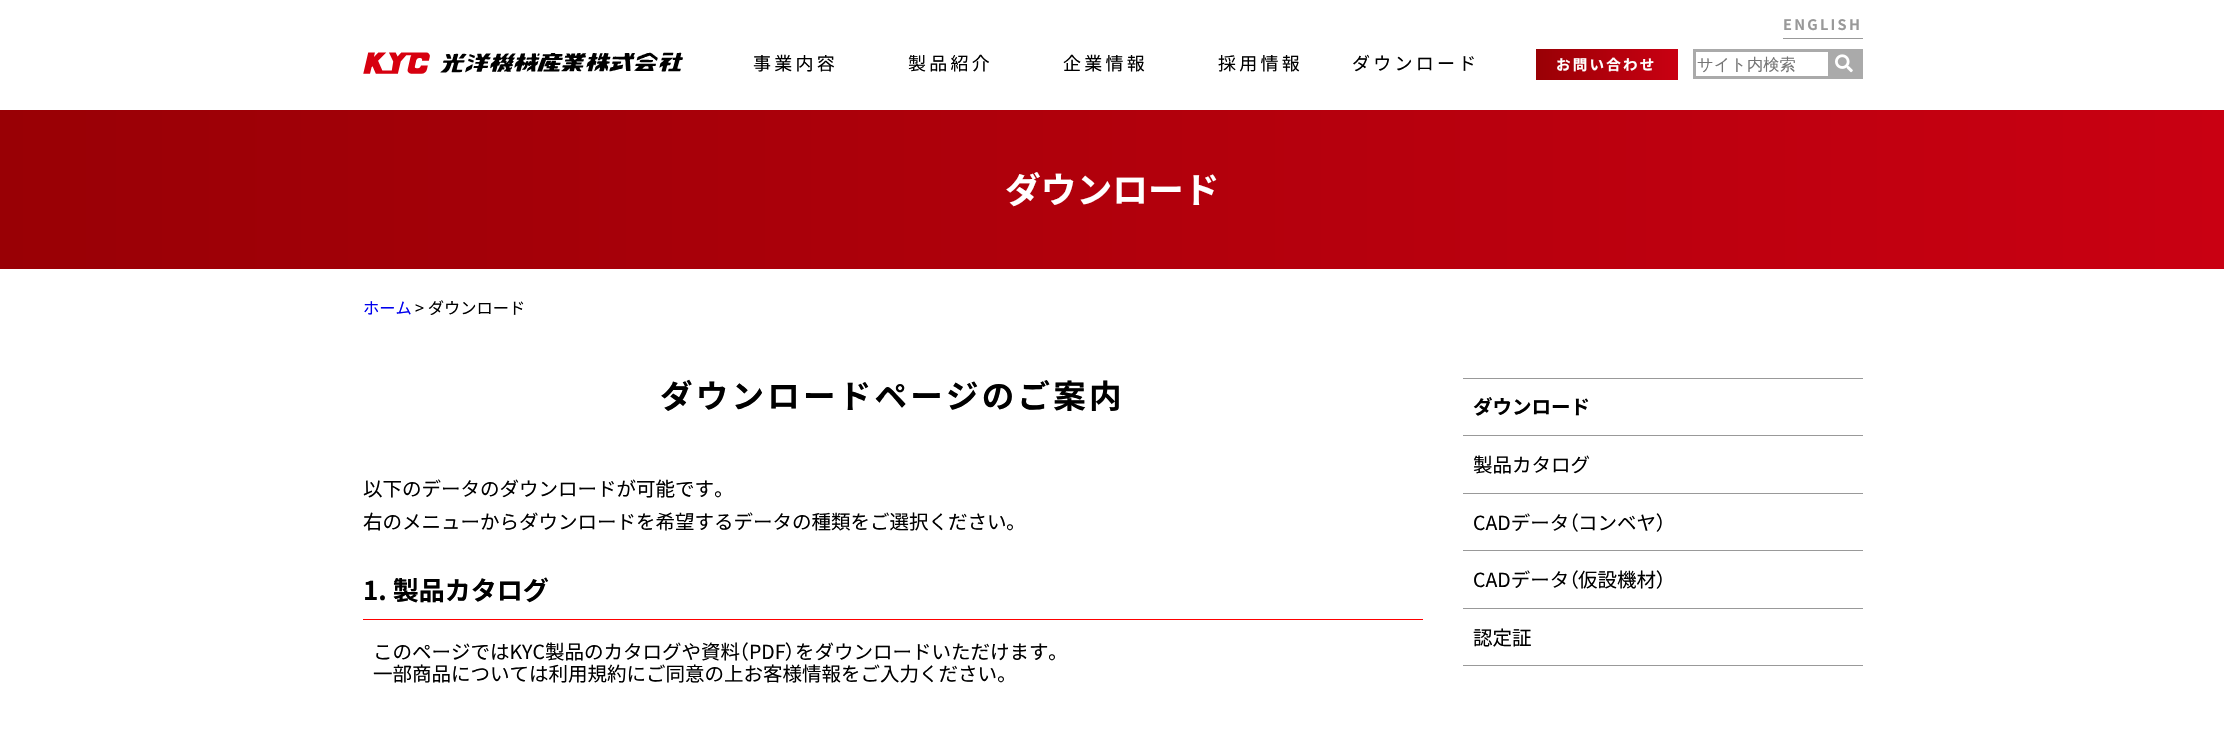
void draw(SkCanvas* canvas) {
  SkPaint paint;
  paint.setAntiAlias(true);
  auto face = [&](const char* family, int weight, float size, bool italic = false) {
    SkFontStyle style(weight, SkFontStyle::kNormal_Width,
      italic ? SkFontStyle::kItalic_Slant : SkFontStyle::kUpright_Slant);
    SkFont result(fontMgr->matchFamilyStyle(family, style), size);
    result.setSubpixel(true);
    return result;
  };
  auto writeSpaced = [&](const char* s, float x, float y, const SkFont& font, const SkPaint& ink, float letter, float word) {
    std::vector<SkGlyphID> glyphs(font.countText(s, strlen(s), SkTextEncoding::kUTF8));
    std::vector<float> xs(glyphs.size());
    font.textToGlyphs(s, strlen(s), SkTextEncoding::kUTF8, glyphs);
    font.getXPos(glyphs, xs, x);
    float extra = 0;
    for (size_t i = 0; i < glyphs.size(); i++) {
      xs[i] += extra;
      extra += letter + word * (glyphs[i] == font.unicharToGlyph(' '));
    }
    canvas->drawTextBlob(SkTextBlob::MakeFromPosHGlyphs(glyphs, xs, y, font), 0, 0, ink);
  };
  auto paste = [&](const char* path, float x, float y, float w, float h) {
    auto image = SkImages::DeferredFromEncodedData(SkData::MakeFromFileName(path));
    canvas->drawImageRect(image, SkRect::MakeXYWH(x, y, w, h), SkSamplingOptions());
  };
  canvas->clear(0xffffffff);
  paste("img/1.png", 363, 52, 320, 22);
  paint.setColor(0xff999999);
  canvas->drawRect(SkRect::MakeXYWH(1783, 38, 80, 1), paint);
  {
    const SkColor colors[] = {0xff990005, 0xffc90012};
    const float stops[] = {0, 1};
    const SkPoint ends[] = {{1536, 64}, {1678, 64}};
    paint.setShader(SkGradientShader::MakeLinear(ends, colors, stops, 2, SkTileMode::kClamp));
    paint.setAlpha(255);
  }
  canvas->drawRect(SkRect::MakeXYWH(1536, 49, 142, 31), paint);
  paint.setStroke(true);
  paint.setStrokeWidth(3);
  paint.setShader(nullptr);
  paint.setColor(0xffaaaaaa);
  canvas->drawRect(SkRect::MakeXYWH(1694.5f, 50.5f, 167, 27), paint);
  paint.setStroke(false);
  canvas->drawRect(SkRect::MakeXYWH(1828, 52, 32, 24), paint);
  paste("img/2.png", 1835, 54, 18, 19);
  {
    const SkColor colors[] = {0xff990005, 0xffc90012};
    const float stops[] = {0, 1};
    const SkPoint ends[] = {{0, 189}, {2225, 189}};
    paint.setShader(SkGradientShader::MakeLinear(ends, colors, stops, 2, SkTileMode::kClamp));
    paint.setAlpha(255);
  }
  canvas->drawRect(SkRect::MakeXYWH(0, 110, 2224, 159), paint);
  paint.setShader(nullptr);
  {
    const struct { float x, y, w, h; SkColor color; } items[] = {
      {363, 619, 1060, 1, 0xffff0000},
      {1463, 378, 400, 1, 0xff999999},
      {1463, 435, 400, 1, 0xff999999},
      {1463, 493, 400, 1, 0xff999999},
      {1463, 550, 400, 1, 0xff999999},
      {1463, 608, 400, 1, 0xff999999},
      {1463, 665, 400, 1, 0xff999999},
    };
    for (auto [x, y, w, h, color] : items) {
      paint.setColor(color);
      canvas->drawRect(SkRect::MakeXYWH(x, y, w, h), paint);
    }
  }
  auto f0 = face("Noto Sans JP", 400, 18);
  paint.setColor(0xff000000);
  {
    const struct { const char* s; float x, y; } items[] = {
      {"事業内容", 753, 70},
      {"製品紹介", 908, 70},
      {"企業情報", 1063, 70},
      {"採用情報", 1218, 70},
      {"ダウンロード", 1352, 70},
    };
    for (auto [s, x, y] : items) {
      writeSpaced(s, x, y, f0, paint, 3.25f, 0);
    }
  }
  auto f1 = face("Noto Sans JP", 700, 14.5f);
  paint.setColor(0xff999999);
  writeSpaced("ENGLISH", 1783, 30, f1, paint, 2.25f, 0);
  paint.setColor(0xffffffff);
  writeSpaced("お問い合わせ", 1556, 70, f1, paint, 2.25f, 0);
  auto f2 = face("WenQuanYi Zen Hei", 500, 16.25f);
  paint.setColor(0xff757575);
  canvas->drawString("サイト内検索", 1697, 70, f2, paint);
  auto f3 = face("Noto Sans JP", 700, 35.75f);
  paint.setColor(0xffffffff);
  canvas->drawString("ダウンロード", 1005, 203, f3, paint);
  auto f4 = face("Noto Sans JP", 400, 16.25f);
  paint.setColor(0xff0000ee);
  canvas->drawString("ホーム", 363, 314, f4, paint);
  paint.setColor(0xff000000);
  canvas->drawString("> ダウンロード", 415, 314, f4, paint);
  auto f5 = face("Noto Sans JP", 700, 32.5f);
  writeSpaced("ダウンロードページのご案内", 660, 408, f5, paint, 3.25f, 0);
  auto f6 = face("Noto Sans JP", 400, 19.5f);
  canvas->drawString("以下のデータのダウンロードが可能です", 363, 496, f6, paint);
  auto f7 = face("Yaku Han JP", 400, 19.5f);
  canvas->drawString("。", 714, 496, f7, paint);
  canvas->drawString("右のメニューからダウンロードを希望するデータの種類をご選択ください", 363, 529, f6, paint);
  canvas->drawString("。", 1006, 529, f7, paint);
  auto f8 = face("Noto Sans JP", 700, 26);
  canvas->drawString("1. 製品カタログ", 363, 600, f8, paint);
  canvas->drawString("このページではKYC製品のカタログや資料", 373, 659, f6, paint);
  canvas->drawString("（", 739, 659, f7, paint);
  canvas->drawString("PDF", 749, 659, f6, paint);
  canvas->drawString("）", 785, 659, f7, paint);
  canvas->drawString("をダウンロードいただけます", 795, 659, f6, paint);
  canvas->drawString("。", 1048, 659, f7, paint);
  canvas->drawString("一部商品については利用規約にご同意の上お客様情報をご入力ください", 373, 681, f6, paint);
  canvas->drawString("。", 997, 681, f7, paint);
  auto f9 = face("Noto Sans JP", 700, 19.5f);
  canvas->drawString("ダウンロード", 1473, 414, f9, paint);
  canvas->drawString("製品カタログ", 1473, 472, f6, paint);
  canvas->drawString("CADデータ", 1473, 530, f6, paint);
  canvas->drawString("（", 1569, 530, f7, paint);
  canvas->drawString("コンベヤ", 1578, 530, f6, paint);
  canvas->drawString("）", 1656, 530, f7, paint);
  canvas->drawString("CADデータ", 1473, 587, f6, paint);
  canvas->drawString("（", 1569, 587, f7, paint);
  canvas->drawString("仮設機材", 1578, 587, f6, paint);
  canvas->drawString("）", 1656, 587, f7, paint);
  canvas->drawString("認定証", 1473, 645, f6, paint);
}
